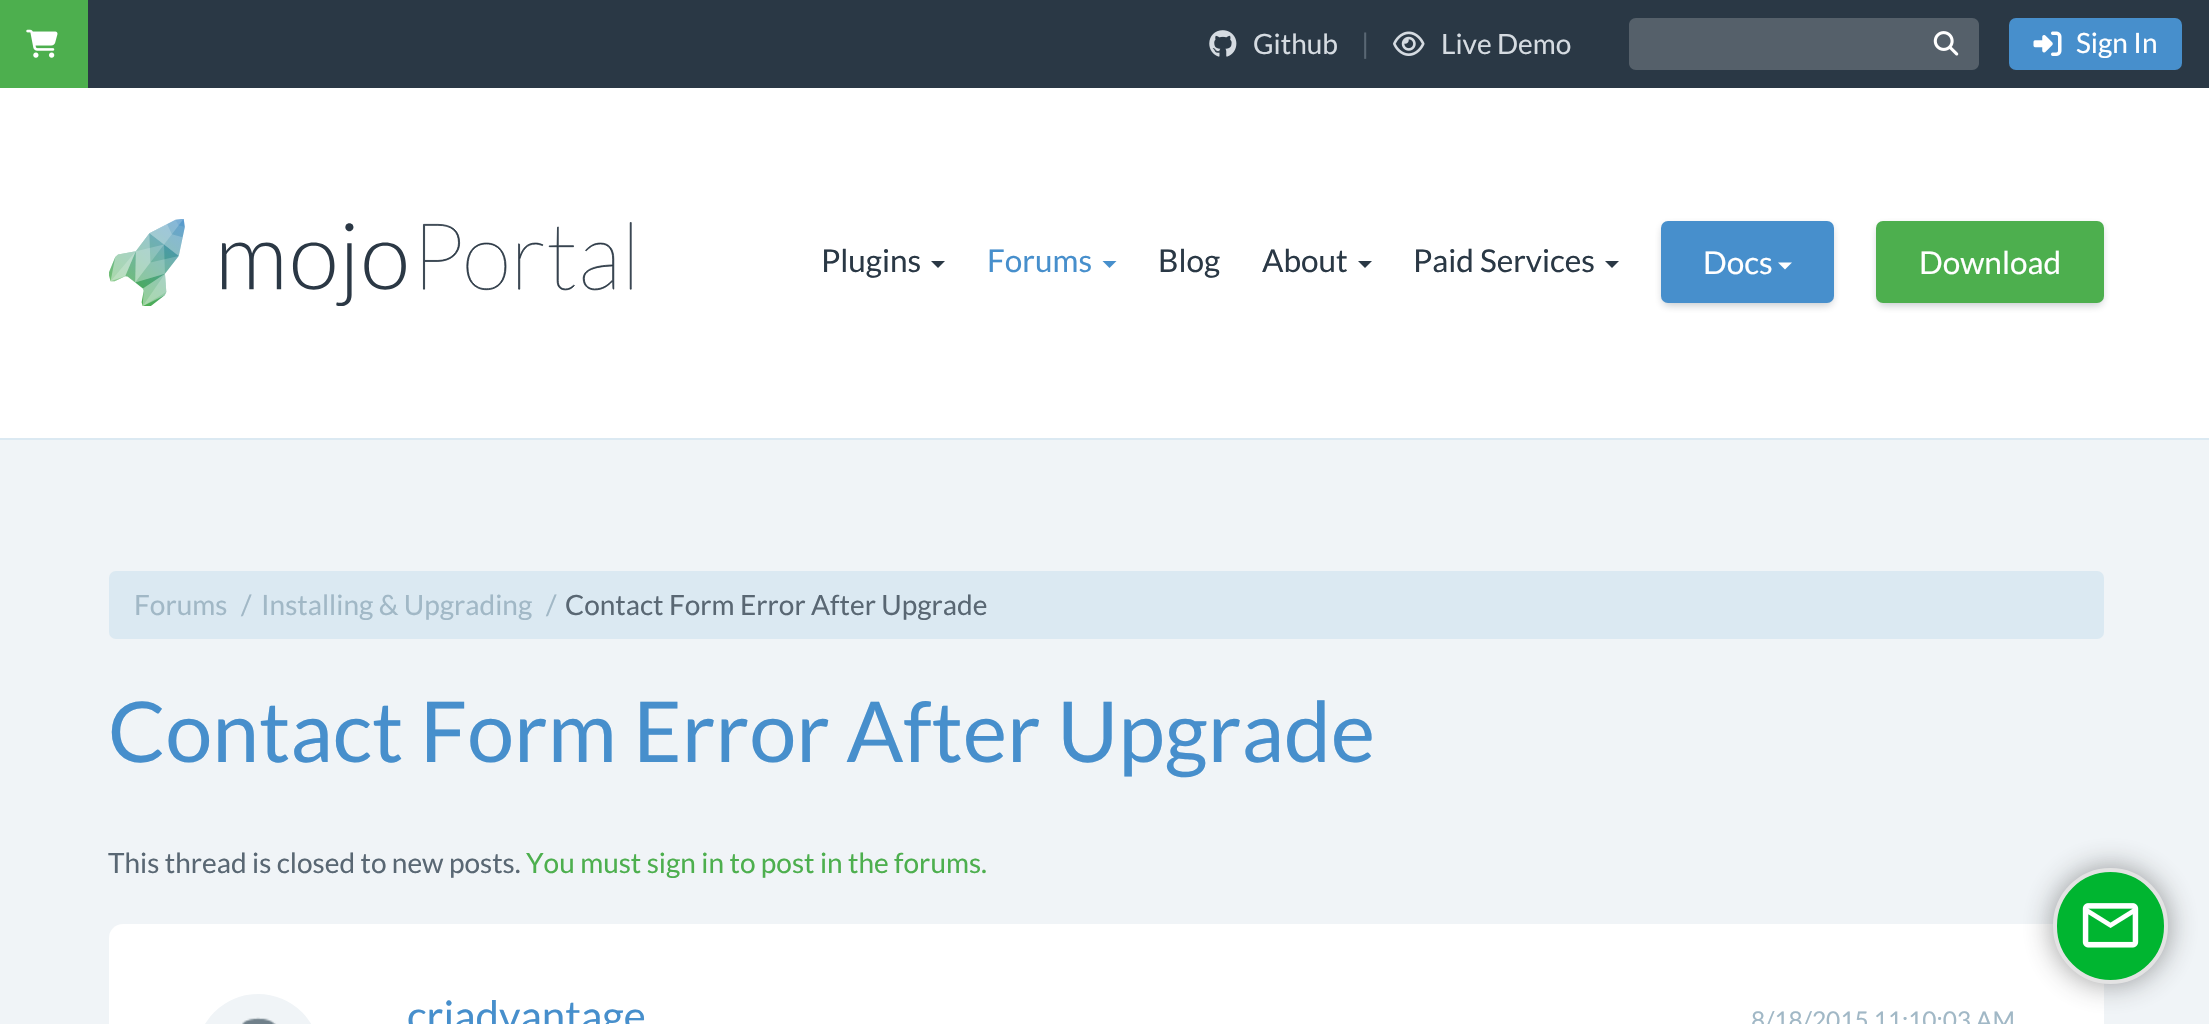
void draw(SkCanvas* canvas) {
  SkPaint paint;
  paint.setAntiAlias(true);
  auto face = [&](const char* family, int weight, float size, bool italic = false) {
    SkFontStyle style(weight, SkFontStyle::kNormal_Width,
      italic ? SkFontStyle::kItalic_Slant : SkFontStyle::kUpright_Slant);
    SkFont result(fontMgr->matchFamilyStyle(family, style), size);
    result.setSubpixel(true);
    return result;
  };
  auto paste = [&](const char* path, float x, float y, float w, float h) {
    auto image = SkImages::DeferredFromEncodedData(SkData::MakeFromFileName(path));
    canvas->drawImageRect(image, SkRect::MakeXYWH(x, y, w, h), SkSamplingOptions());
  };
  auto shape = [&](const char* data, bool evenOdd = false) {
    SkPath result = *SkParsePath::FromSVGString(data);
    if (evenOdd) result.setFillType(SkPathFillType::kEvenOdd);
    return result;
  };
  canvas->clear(0xfff0f4f7);
  paint.setColor(0xff2a3845);
  canvas->drawRect(SkRect::MakeXYWH(88, 0, 2121, 88), paint);
  paint.setColor(0xff4daf4e);
  canvas->drawRect(SkRect::MakeXYWH(0, 0, 88, 88), paint);
  paste("img/1.png", 26, 29, 32, 29);
  paste("img/2.png", 1209, 30, 28, 27);
  paste("img/3.png", 1393, 31, 32, 25);
  paint.setColor(0xff55606a);
  canvas->drawPath(shape("M1636 18H1913V70H1636C1632 70 1629 67 1629 63V25C1629 21 1632 18 1636 18Z"), paint);
  canvas->drawPath(shape("M1913 18H1972C1976 18 1979 21 1979 25V63C1979 67 1976 70 1972 70H1913Z"), paint);
  paste("img/4.png", 1933, 31, 26, 25);
  paint.setColor(0xff478fcc);
  canvas->drawRoundRect(SkRect::MakeXYWH(2009, 18, 173, 52), 7, 7, paint);
  paste("img/5.png", 2033, 31, 29, 25);
  paint.setColor(0xffffffff);
  canvas->drawRect(SkRect::MakeXYWH(0, 88, 2209, 350), paint);
  paint.setColor(0xffdbe9f2);
  canvas->drawRect(SkRect::MakeXYWH(0, 438, 2209, 2), paint);
  paste("img/6.png", 109, 219, 523, 87);
  paint.setColor(0xff2a3845);
  canvas->drawPath(shape("M931 261H945L938 268Z"), paint);
  paint.setColor(0xff478fcc);
  canvas->drawPath(shape("M1102.5 261H1116.5L1109.5 268Z"), paint);
  paint.setColor(0xff2a3845);
  canvas->drawPath(shape("M1358 261H1372L1365 268Z"), paint);
  canvas->drawPath(shape("M1605 261H1619L1612 268Z"), paint);
  paint.setColor(0x40051727);
  paint.setMaskFilter(SkMaskFilter::MakeBlur(kNormal_SkBlurStyle, 4.5f));
  canvas->drawRoundRect(SkRect::MakeXYWH(1663, 226, 169, 79), 5, 5, paint);
  paint.setMaskFilter(nullptr);
  paint.setColor(0xff478fcc);
  canvas->drawRoundRect(SkRect::MakeXYWH(1661, 221, 173, 82), 7, 7, paint);
  paint.setColor(0xffffffff);
  canvas->drawPath(shape("M1778 262.5H1792L1785 269.5Z"), paint);
  paint.setColor(0x40051727);
  paint.setMaskFilter(SkMaskFilter::MakeBlur(kNormal_SkBlurStyle, 4.5f));
  canvas->drawRoundRect(SkRect::MakeXYWH(1878, 226, 224, 79), 5, 5, paint);
  paint.setMaskFilter(nullptr);
  paint.setColor(0xff4daf4e);
  canvas->drawRoundRect(SkRect::MakeXYWH(1876, 221, 228, 82), 7, 7, paint);
  paint.setColor(0xffdbe9f2);
  canvas->drawRoundRect(SkRect::MakeXYWH(109, 571, 1995, 68), 7, 7, paint);
  paint.setColor(0xffffffff);
  canvas->drawRoundRect(SkRect::MakeXYWH(109, 924, 1995, 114), 14, 14, paint);
  paste("img/7.png", 205, 994, 106, 30);
  paint.setColor(0x80323232);
  paint.setMaskFilter(SkMaskFilter::MakeBlur(kNormal_SkBlurStyle, 15));
  canvas->drawRoundRect(SkRect::MakeXYWH(2053, 868, 115, 116), 57.5f, 57.5f, paint);
  paint.setMaskFilter(nullptr);
  paint.setColor(0xff00b530);
  canvas->drawRoundRect(SkRect::MakeXYWH(2055, 870, 111, 112), 55.5f, 55.5f, paint);
  paint.setStroke(true);
  paint.setStrokeWidth(4);
  paint.setColor(0xffe3e3e3);
  canvas->drawRoundRect(SkRect::MakeXYWH(2055, 870, 111, 112), 55.5f, 55.5f, paint);
  paste("img/8.png", 2082, 903, 57, 45);
  auto f0 = face("Lato", 400, 28);
  paint.setStroke(false);
  paint.setColor(0xffd5dbe1);
  canvas->drawString("Github", 1253, 54, f0, paint);
  paint.setColor(0xff596773);
  canvas->drawString("|", 1361, 54, f0, paint);
  paint.setColor(0xffd5dbe1);
  canvas->drawString("Live Demo", 1441, 54, f0, paint);
  paint.setColor(0xffffffff);
  canvas->drawString("Sign In", 2076, 53, f0, paint);
  auto f1 = face("Lato", 400, 31.5f);
  paint.setColor(0xff2a3845);
  canvas->drawString("Plugins", 821, 272, f1, paint);
  paint.setColor(0xff478fcc);
  canvas->drawString("Forums", 987, 272, f1, paint);
  paint.setColor(0xff2a3845);
  {
    const struct { const char* s; float x, y; } items[] = {
      {"Blog", 1158, 272},
      {"About", 1262, 272},
      {"Paid Services", 1413, 272},
    };
    for (auto [s, x, y] : items) {
      canvas->drawString(s, x, y, f1, paint);
    }
  }
  paint.setColor(0xffffffff);
  canvas->drawString("Docs", 1703, 274, f1, paint);
  canvas->drawString("Download", 1919, 274, f1, paint);
  paint.setColor(0xffa1b8c6);
  {
    const struct { const char* s; float x, y; } items[] = {
      {"Forums", 134, 615},
      {"/", 241, 615},
      {"Installing & Upgrading", 261, 615},
      {"/", 546, 615},
    };
    for (auto [s, x, y] : items) {
      canvas->drawString(s, x, y, f0, paint);
    }
  }
  paint.setColor(0xff596773);
  canvas->drawString("Contact Form Error After Upgrade", 565, 615, f0, paint);
  auto f2 = face("Lato", 400, 84);
  paint.setColor(0xff478fcc);
  canvas->drawString("Contact Form Error After Upgrade", 108, 762, f2, paint);
  paint.setColor(0xff596773);
  canvas->drawString("This thread is closed to new posts.", 108, 873, f0, paint);
  paint.setColor(0xff4daf4e);
  canvas->drawString("You must sign in to post in the forums.", 526, 873, f0, paint);
  auto f3 = face("Lato", 400, 42);
  paint.setColor(0xff478fcc);
  canvas->drawString("criadvantage", 407, 1031, f3, paint);
  auto f4 = face("Lato", 400, 24.5f);
  paint.setColor(0xffa1b8c6);
  canvas->drawString("8/18/2015 11:10:03 AM", 1751, 1029, f4, paint);
}
